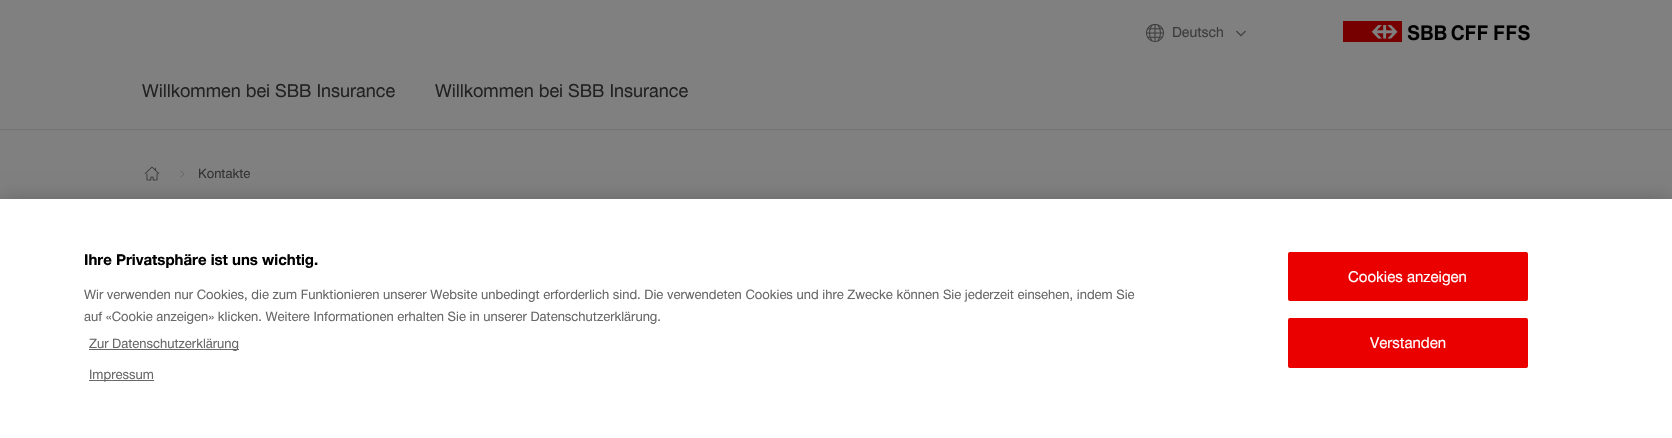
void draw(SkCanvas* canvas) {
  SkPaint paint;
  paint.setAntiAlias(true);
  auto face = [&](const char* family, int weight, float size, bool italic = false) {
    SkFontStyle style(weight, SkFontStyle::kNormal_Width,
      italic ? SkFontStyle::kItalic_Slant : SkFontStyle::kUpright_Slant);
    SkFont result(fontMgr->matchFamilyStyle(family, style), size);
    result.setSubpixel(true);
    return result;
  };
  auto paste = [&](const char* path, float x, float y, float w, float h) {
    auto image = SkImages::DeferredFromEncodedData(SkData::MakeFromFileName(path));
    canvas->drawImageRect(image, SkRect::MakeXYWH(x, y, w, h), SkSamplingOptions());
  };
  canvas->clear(0xff808080);
  paint.setColor(0xff737373);
  canvas->drawRect(SkRect::MakeXYWH(0, 129, 1672, 1), paint);
  paste("img/1.png", 1146, 23, 18, 19);
  paste("img/2.png", 1236, 30, 10, 7);
  paste("img/3.png", 1343, 21, 187, 21);
  paste("img/4.png", 144, 166, 16, 15);
  paste("img/5.png", 180, 170, 5, 8);
  paint.setColor(0x33000000);
  paint.setMaskFilter(SkMaskFilter::MakeBlur(kNormal_SkBlurStyle, 9));
  canvas->drawRect(SkRect::MakeXYWH(0, 199, 1672, 239), paint);
  paint.setMaskFilter(nullptr);
  {
    const struct { float x, y, w, h; SkColor color; } items[] = {
      {0, 199, 1672, 239, 0xffffffff},
      {89, 349, 150, 1, 0xff686868},
      {89, 380, 65, 1, 0xff686868},
    };
    for (auto [x, y, w, h, color] : items) {
      paint.setColor(color);
      canvas->drawRect(SkRect::MakeXYWH(x, y, w, h), paint);
    }
  }
  paint.setColor(0xffeb0000);
  canvas->drawRoundRect(SkRect::MakeXYWH(1288, 252, 240, 49), 2, 2, paint);
  canvas->drawRoundRect(SkRect::MakeXYWH(1288, 318, 240, 50), 2, 2, paint);
  auto f0 = face("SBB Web", 400, 14);
  paint.setColor(0xff3b3b3b);
  canvas->drawString("Deutsch", 1172, 37, f0, paint);
  auto f1 = face("SBB Web", 400, 18);
  paint.setColor(0xff222222);
  canvas->drawString("Willkommen bei SBB Insurance", 142, 97, f1, paint);
  canvas->drawString("Willkommen bei SBB Insurance", 435, 97, f1, paint);
  auto f2 = face("SBB Web", 400, 13);
  paint.setColor(0xff333333);
  canvas->drawString("Kontakte", 198, 178, f2, paint);
  auto f3 = face("SBB Web", 700, 15);
  paint.setColor(0xff000000);
  canvas->drawString("Ihre Privatsphäre ist uns wichtig.", 84, 265, f3, paint);
  paint.setColor(0xff686868);
  {
    const struct { const char* s; float x, y; } items[] = {
      {"Wir verwenden nur Cookies, die zum Funktionieren unserer Website unbedingt erforderlich sind. Die verwendeten Cookies und ihre Zwecke können Sie jederzeit einsehen, indem Sie", 84, 299},
      {"auf «Cookie anzeigen» klicken. Weitere Informationen erhalten Sie in unserer Datenschutzerklärung.", 84, 321},
      {"Zur Datenschutzerklärung", 89, 348},
      {"Impressum", 89, 379},
    };
    for (auto [s, x, y] : items) {
      canvas->drawString(s, x, y, f2, paint);
    }
  }
  auto f4 = face("SBB Web", 400, 15);
  paint.setColor(0xffffffff);
  canvas->drawString("Cookies anzeigen", 1348, 282, f4, paint);
  canvas->drawString("Verstanden", 1370, 348, f4, paint);
}
